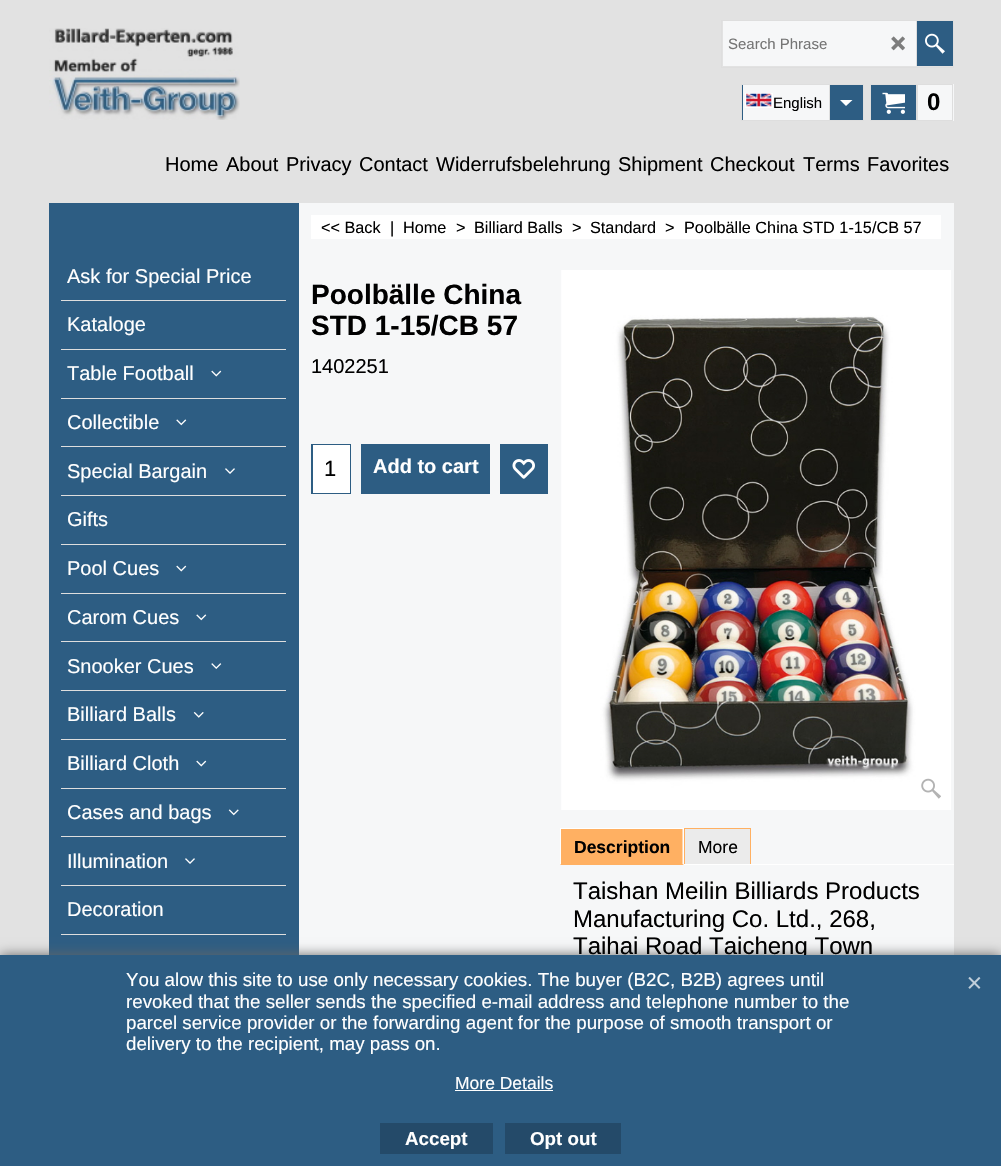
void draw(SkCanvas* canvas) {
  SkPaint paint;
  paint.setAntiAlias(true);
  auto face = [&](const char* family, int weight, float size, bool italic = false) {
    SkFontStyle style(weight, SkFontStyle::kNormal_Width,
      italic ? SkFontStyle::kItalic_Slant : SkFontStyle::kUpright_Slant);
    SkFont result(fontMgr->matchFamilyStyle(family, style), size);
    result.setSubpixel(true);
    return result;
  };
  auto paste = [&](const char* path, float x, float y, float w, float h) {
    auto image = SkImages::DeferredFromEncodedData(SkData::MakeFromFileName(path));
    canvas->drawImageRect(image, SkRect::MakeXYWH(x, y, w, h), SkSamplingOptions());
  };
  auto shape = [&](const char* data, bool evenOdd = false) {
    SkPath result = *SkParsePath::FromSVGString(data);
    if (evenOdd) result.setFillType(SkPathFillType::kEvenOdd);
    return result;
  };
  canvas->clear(0xffe2e2e2);
  paste("img/1.png", 49, 28, 191, 92);
  paint.setStroke(true);
  paint.setStrokeWidth(1);
  paint.setColor(0xffdedede);
  canvas->drawRect(SkRect::MakeXYWH(721.5f, 20.5f, 232, 47), paint);
  paint.setStroke(false);
  paint.setColor(0xfff6f7f8);
  canvas->drawRect(SkRect::MakeXYWH(723, 21, 193, 45), paint);
  paste("img/2.png", 891, 36, 14, 15);
  paint.setColor(0xff2d5d83);
  canvas->drawRect(SkRect::MakeXYWH(917, 21, 36, 45), paint);
  paint.setColor(0xffdedede);
  canvas->drawRect(SkRect::MakeXYWH(916, 21, 1, 45), paint);
  paste("img/3.png", 925, 33, 20, 21);
  paint.setColor(0xff2d5d83);
  canvas->drawRect(SkRect::MakeXYWH(742, 85, 1, 35), paint);
  paint.setStroke(true);
  paint.setColor(0xffdedede);
  canvas->drawRect(SkRect::MakeXYWH(741.5f, 84.5f, 122, 36), paint);
  paint.setStroke(false);
  paint.setColor(0xfff6f7f8);
  canvas->drawRect(SkRect::MakeXYWH(743, 85, 86, 35), paint);
  paint.setStroke(true);
  paint.setColor(0xffffffff);
  canvas->drawRect(SkRect::MakeXYWH(745.5f, 93.5f, 27, 14), paint);
  paste("img/4.png", 746, 93, 26, 14);
  paint.setStroke(false);
  paint.setColor(0xff2d5d83);
  canvas->drawRect(SkRect::MakeXYWH(830, 85, 33, 35), paint);
  paint.setColor(0xffdedede);
  canvas->drawRect(SkRect::MakeXYWH(829, 85, 1, 35), paint);
  paint.setColor(0xffffffff);
  canvas->drawPath(shape("M840 100L846 106L852.5 100Z"), paint);
  paint.setColor(0xfff6f7f8);
  canvas->drawRect(SkRect::MakeXYWH(918, 84, 36, 37), paint);
  paint.setColor(0xff2d5d83);
  canvas->drawRect(SkRect::MakeXYWH(871, 85, 45, 35), paint);
  paint.setStroke(true);
  paint.setColor(0xffdedede);
  canvas->drawRect(SkRect::MakeXYWH(870.5f, 84.5f, 47, 36), paint);
  paste("img/5.png", 882, 92, 23, 22);
  canvas->drawRect(SkRect::MakeXYWH(916.5f, 84.5f, 36, 36), paint);
  paint.setStroke(false);
  {
    const struct { float x, y, w, h; SkColor color; } items[] = {
      {49, 203, 250, 752, 0xff2d5d83},
      {61, 300, 225, 1, 0xffdedede},
      {61, 349, 225, 1, 0xffdedede},
      {61, 398, 225, 1, 0xffdedede},
    };
    for (auto [x, y, w, h, color] : items) {
      paint.setColor(color);
      canvas->drawRect(SkRect::MakeXYWH(x, y, w, h), paint);
    }
  }
  paste("img/6.png", 211, 370, 11, 7);
  canvas->drawRect(SkRect::MakeXYWH(61, 446, 225, 1), paint);
  paste("img/7.png", 176, 419, 11, 7);
  canvas->drawRect(SkRect::MakeXYWH(61, 495, 225, 1), paint);
  paste("img/8.png", 225, 468, 10, 6);
  canvas->drawRect(SkRect::MakeXYWH(61, 544, 225, 1), paint);
  canvas->drawRect(SkRect::MakeXYWH(61, 593, 225, 1), paint);
  paste("img/6.png", 176, 565, 11, 7);
  canvas->drawRect(SkRect::MakeXYWH(61, 641, 225, 1), paint);
  paste("img/7.png", 196, 614, 11, 7);
  canvas->drawRect(SkRect::MakeXYWH(61, 690, 225, 1), paint);
  paste("img/9.png", 211, 663, 11, 6);
  canvas->drawRect(SkRect::MakeXYWH(61, 739, 225, 1), paint);
  paste("img/10.png", 193, 712, 11, 6);
  canvas->drawRect(SkRect::MakeXYWH(61, 788, 225, 1), paint);
  paste("img/6.png", 196, 760, 11, 7);
  canvas->drawRect(SkRect::MakeXYWH(61, 836, 225, 1), paint);
  paste("img/11.png", 228, 809, 11, 7);
  canvas->drawRect(SkRect::MakeXYWH(61, 885, 225, 1), paint);
  paste("img/8.png", 185, 858, 10, 6);
  {
    const struct { float x, y, w, h; SkColor color; } items[] = {
      {61, 934, 225, 1, 0xffdedede},
      {299, 203, 655, 752, 0xfff6f7f8},
      {311, 215, 630, 24, 0xffffffff},
      {311, 444, 40, 50, 0xff2d5d83},
      {313, 445, 37, 48, 0xffffffff},
      {361, 444, 129, 50, 0xff2d5d83},
      {500, 444, 48, 50, 0xff2d5d83},
    };
    for (auto [x, y, w, h, color] : items) {
      paint.setColor(color);
      canvas->drawRect(SkRect::MakeXYWH(x, y, w, h), paint);
    }
  }
  paste("img/12.png", 512, 459, 23, 20);
  paste("img/13.png", 561, 270, 390, 540);
  paste("img/14.png", 921, 778, 20, 21);
  paint.setColor(0xffffb062);
  canvas->drawRect(SkRect::MakeXYWH(560, 829, 124, 36), paint);
  paint.setColor(0xffffffff);
  canvas->drawRect(SkRect::MakeXYWH(560, 828, 124, 1), paint);
  canvas->drawPath(shape("M684 827.5V865L682.5 864V829Z"), paint);
  canvas->drawPath(shape("M560 865V827.5L561 829V864Z"), paint);
  {
    const struct { float x, y, w, h; SkColor color; } items[] = {
      {685, 829, 65, 35, 0xffebebeb},
      {684, 828, 67, 1, 0xffffb062},
      {750, 828, 1, 36, 0xffffb062},
      {684, 828, 1, 36, 0xffffb062},
      {684, 864, 270, 1, 0xffffffff},
    };
    for (auto [x, y, w, h, color] : items) {
      paint.setColor(color);
      canvas->drawRect(SkRect::MakeXYWH(x, y, w, h), paint);
    }
  }
  paint.setColor(0xff666666);
  paint.setMaskFilter(SkMaskFilter::MakeBlur(kNormal_SkBlurStyle, 6));
  canvas->drawRect(SkRect::MakeXYWH(0, 955, 1001, 211), paint);
  paint.setMaskFilter(nullptr);
  auto f0 = face("Liberation Sans", 400, 15);
  paint.setColor(0xff757575);
  canvas->drawString("Search Phrase", 728, 49, f0, paint);
  paint.setColor(0xff000000);
  canvas->drawString("English", 773, 108, f0, paint);
  auto f1 = face("Liberation Sans", 700, 24);
  canvas->drawString("0", 927, 110, f1, paint);
  auto f2 = face("Liberation Sans", 400, 20);
  {
    const struct { const char* s; float x, y; } items[] = {
      {"Home", 165, 171},
      {"About", 226, 171},
      {"Privacy", 286, 171},
      {"Contact", 359, 171},
      {"Widerrufsbelehrung", 436, 171},
      {"Shipment", 618, 171},
      {"Checkout", 710, 171},
      {"Terms", 803, 171},
      {"Favorites", 867, 171},
    };
    for (auto [s, x, y] : items) {
      canvas->drawString(s, x, y, f2, paint);
    }
  }
  paint.setColor(0xffffffff);
  {
    const struct { const char* s; float x, y; } items[] = {
      {"Ask for Special Price", 67, 283},
      {"Kataloge", 67, 331},
      {"Table Football", 67, 380},
      {"Collectible", 67, 429},
      {"Special Bargain", 67, 478},
      {"Gifts", 67, 526},
      {"Pool Cues", 67, 575},
      {"Carom Cues", 67, 624},
      {"Snooker Cues", 67, 673},
      {"Billiard Balls", 67, 721},
      {"Billiard Cloth", 67, 770},
      {"Cases and bags", 67, 819},
      {"Illumination", 67, 868},
      {"Decoration", 67, 916},
    };
    for (auto [s, x, y] : items) {
      canvas->drawString(s, x, y, f2, paint);
    }
  }
  auto f3 = face("Liberation Sans", 400, 16.25f);
  paint.setColor(0xff000000);
  {
    const struct { const char* s; float x, y; } items[] = {
      {"<< Back", 321, 233},
      {"|", 390, 233},
      {"Home", 403, 233},
      {">", 456, 233},
      {"Billiard Balls", 474, 233},
      {">", 572, 233},
      {"Standard", 590, 233},
      {">", 665, 233},
      {"Poolbälle China STD 1-15/CB 57", 684, 233},
    };
    for (auto [s, x, y] : items) {
      canvas->drawString(s, x, y, f3, paint);
    }
  }
  auto f4 = face("Liberation Sans", 700, 28);
  canvas->drawString("Poolbälle China", 311, 304, f4, paint);
  canvas->drawString("STD 1-15/CB 57", 311, 335, f4, paint);
  canvas->drawString("1402251", 311, 373, f2, paint);
  auto f5 = face("Liberation Sans", 400, 22);
  canvas->drawString("1", 324, 476, f5, paint);
  auto f6 = face("Liberation Sans", 700, 20);
  paint.setColor(0xffffffff);
  canvas->drawString("Add to cart", 373, 473, f6, paint);
  auto f7 = face("Liberation Sans", 700, 17.5f);
  paint.setColor(0xff000000);
  canvas->drawString("Description", 574, 853, f7, paint);
  auto f8 = face("Liberation Sans", 400, 17.5f);
  canvas->drawString("More", 698, 853, f8, paint);
  auto f9 = face("Liberation Sans", 400, 24);
  {
    const struct { const char* s; float x, y; } items[] = {
      {"Taishan Meilin Billiards Products", 573, 899},
      {"Manufacturing Co. Ltd., 268,", 573, 927},
      {"Taihai Road Taicheng Town", 573, 954},
    };
    for (auto [s, x, y] : items) {
      canvas->drawString(s, x, y, f9, paint);
    }
  }
  paint.setColor(0xff2d5d83);
  canvas->drawRect(SkRect::MakeXYWH(0, 955, 1001, 211), paint);
  auto f10 = face("Liberation Sans", 400, 18.75f);
  paint.setColor(0xffffffff);
  {
    const struct { const char* s; float x, y; } items[] = {
      {"You alow this site to use only necessary cookies. The buyer (B2C, B2B) agrees until", 126, 986},
      {"revoked that the seller sends the specified e-mail address and telephone number to the", 126, 1008},
      {"parcel service provider or the forwarding agent for the purpose of smooth transport or", 126, 1029},
      {"delivery to the recipient, may pass on.", 126, 1050},
    };
    for (auto [s, x, y] : items) {
      canvas->drawString(s, x, y, f10, paint);
    }
  }
  canvas->drawString("More Details", 455, 1089, f8, paint);
  canvas->drawRect(SkRect::MakeXYWH(455, 1090, 98, 1), paint);
  paste("img/15.png", 968, 977, 13, 12);
  paint.setColor(0xff244a69);
  canvas->drawRect(SkRect::MakeXYWH(380, 1123, 113, 31), paint);
  auto f11 = face("Liberation Sans", 700, 18.75f);
  paint.setColor(0xffffffff);
  canvas->drawString("Accept", 405, 1145, f11, paint);
  paint.setColor(0xff244a69);
  canvas->drawRect(SkRect::MakeXYWH(505, 1123, 116, 31), paint);
  paint.setColor(0xffffffff);
  canvas->drawString("Opt out", 530, 1145, f11, paint);
}
